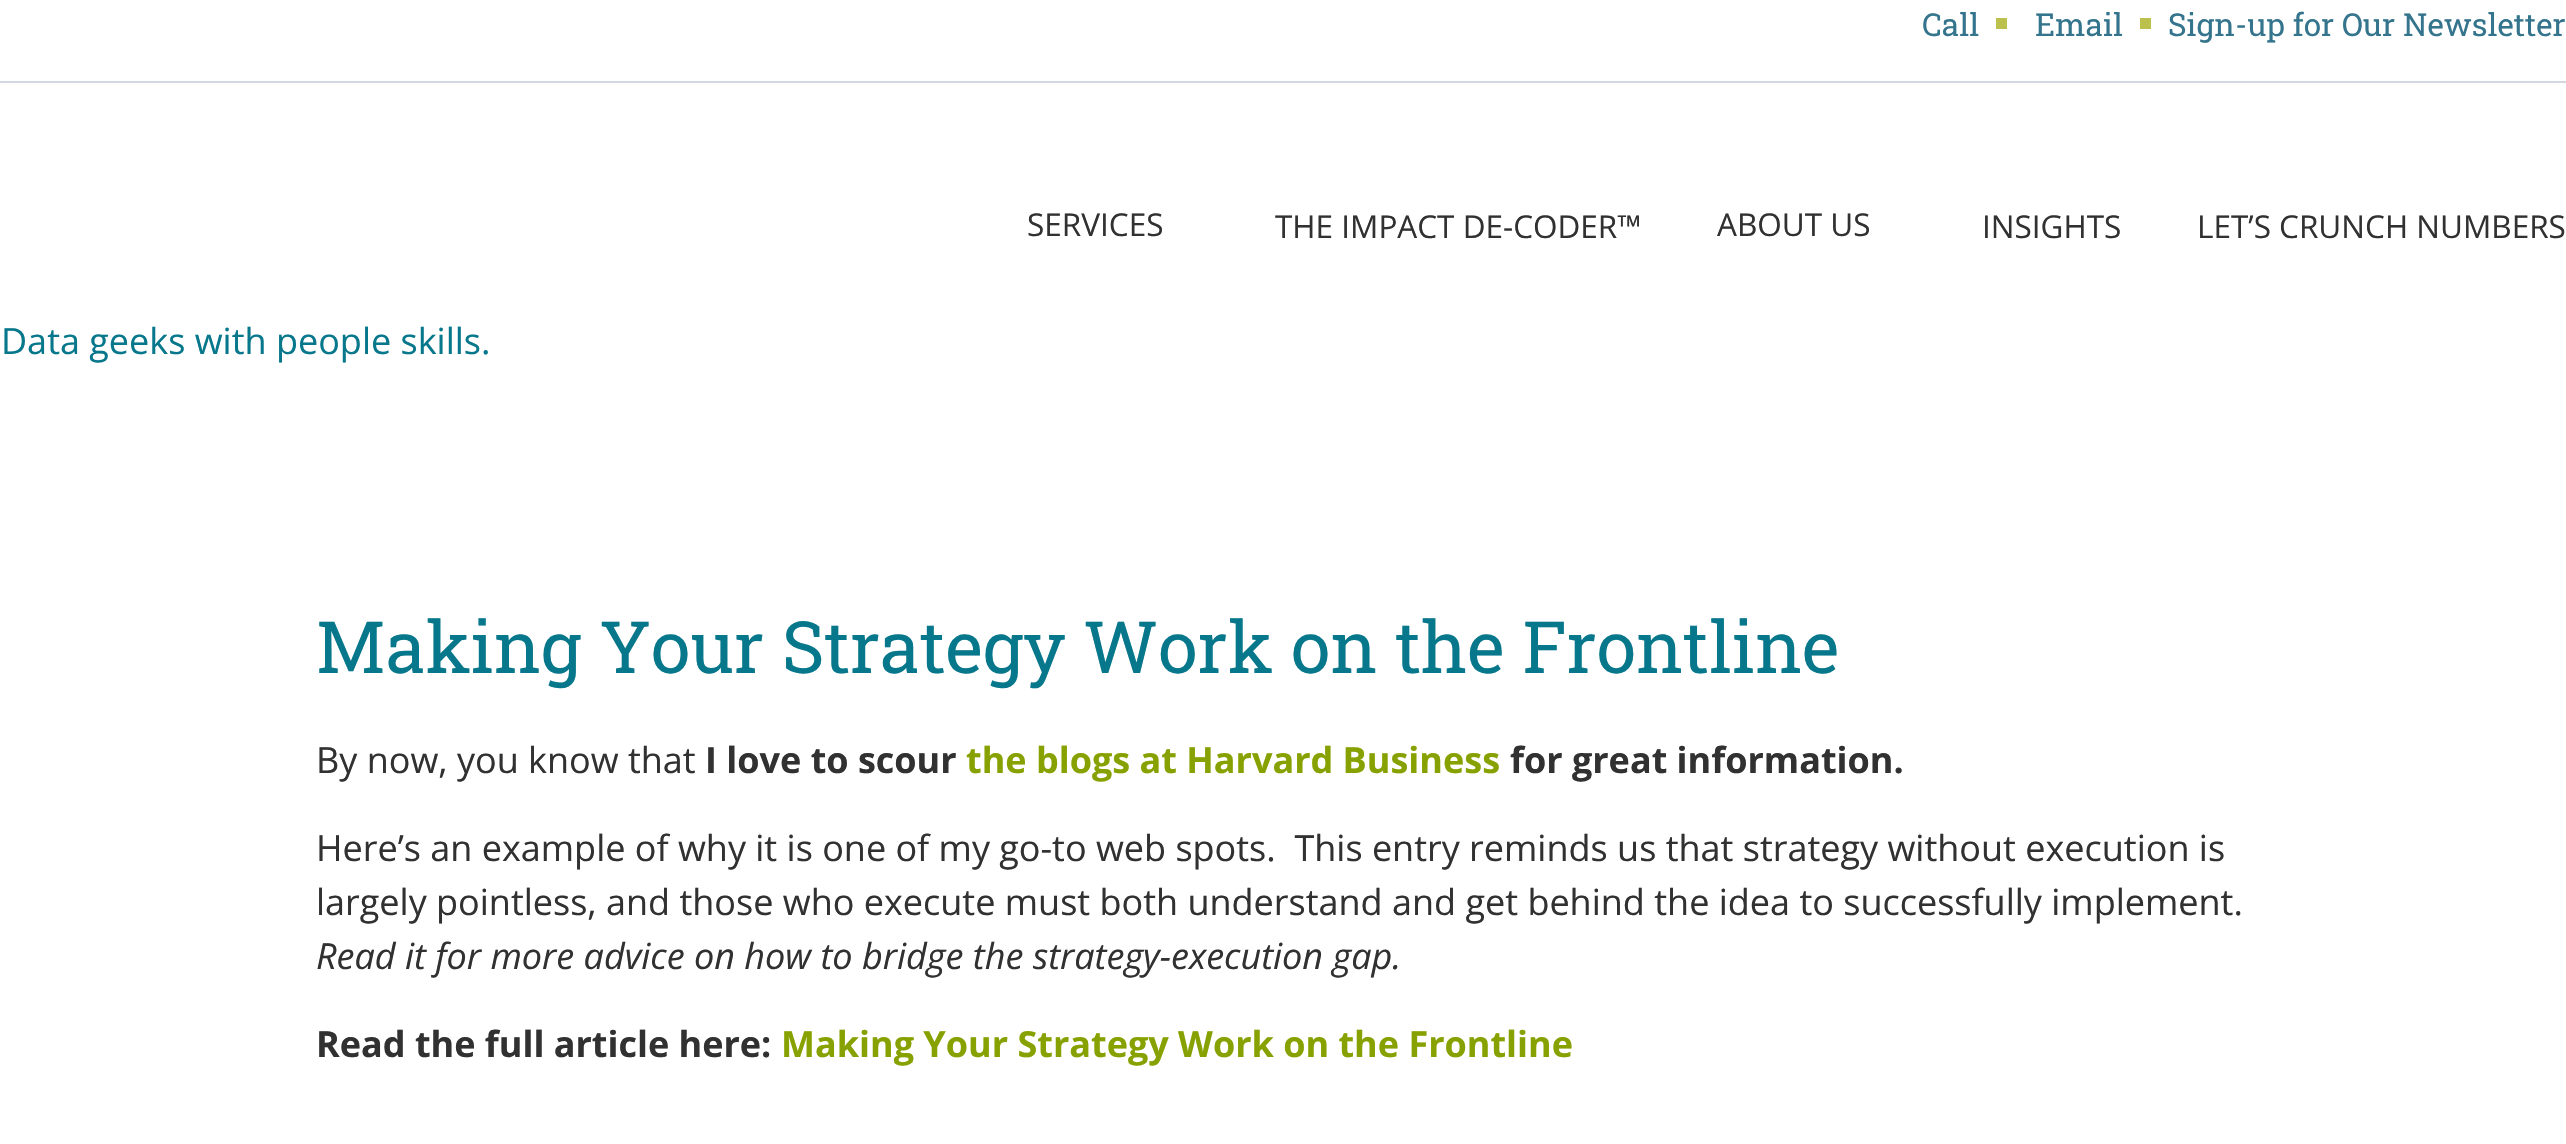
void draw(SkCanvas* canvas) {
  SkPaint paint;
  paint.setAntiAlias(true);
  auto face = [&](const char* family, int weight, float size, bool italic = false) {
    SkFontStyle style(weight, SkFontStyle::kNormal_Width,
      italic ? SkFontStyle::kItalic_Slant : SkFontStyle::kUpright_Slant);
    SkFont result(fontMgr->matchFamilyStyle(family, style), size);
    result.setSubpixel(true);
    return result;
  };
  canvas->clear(0xffffffff);
  {
    const struct { float x, y, w, h; SkColor color; } items[] = {
      {0, 81, 2566, 2, 0xffd4d6e3},
      {1996, 18, 11, 11, 0xffbbc14c},
      {2140, 18, 11, 11, 0xffbbc14c},
    };
    for (auto [x, y, w, h, color] : items) {
      paint.setColor(color);
      canvas->drawRect(SkRect::MakeXYWH(x, y, w, h), paint);
    }
  }
  auto f0 = face("Roboto Slab", 400, 31.5f);
  paint.setColor(0xff34748c);
  {
    const struct { const char* s; float x, y; } items[] = {
      {"Call", 1922, 36},
      {"Email", 2035, 36},
      {"Sign-up for Our Newsletter", 2168, 36},
    };
    for (auto [s, x, y] : items) {
      canvas->drawString(s, x, y, f0, paint);
    }
  }
  auto f1 = face("Open Sans", 400, 31.5f);
  paint.setColor(0xff313131);
  {
    const struct { const char* s; float x, y; } items[] = {
      {"SERVICES", 1027, 236},
      {"THE IMPACT DE-CODER™", 1275, 238},
      {"ABOUT US", 1717, 236},
      {"INSIGHTS", 1982, 238},
      {"LET’S CRUNCH NUMBERS", 2197, 238},
    };
    for (auto [s, x, y] : items) {
      canvas->drawString(s, x, y, f1, paint);
    }
  }
  auto f2 = face("Open Sans", 400, 36);
  paint.setColor(0xff07778b);
  canvas->drawString("Data geeks with people skills.", 1, 354, f2, paint);
  auto f3 = face("Roboto Slab", 400, 72);
  canvas->drawString("Making Your Strategy Work on the Frontline", 316, 673, f3, paint);
  paint.setColor(0xff313131);
  canvas->drawString("By now, you know that", 316, 773, f2, paint);
  auto f4 = face("Open Sans", 700, 36);
  canvas->drawString("I love to scour", 705, 773, f4, paint);
  paint.setColor(0xff86a100);
  canvas->drawString("the blogs at Harvard Business", 966, 773, f4, paint);
  paint.setColor(0xff313131);
  canvas->drawString("for great information.", 1510, 773, f4, paint);
  canvas->drawString("Here’s an example of why it is one of my go-to web spots.  This entry reminds us that strategy without execution is", 316, 861, f2, paint);
  canvas->drawString("largely pointless, and those who execute must both understand and get behind the idea to successfully implement.", 316, 915, f2, paint);
  auto f5 = face("Open Sans", 400, 36, true);
  canvas->drawString("Read it for more advice on how to bridge the strategy-execution gap.", 316, 969, f5, paint);
  canvas->drawString("Read the full article here:", 316, 1057, f4, paint);
  paint.setColor(0xff86a100);
  canvas->drawString("Making Your Strategy Work on the Frontline", 781, 1057, f4, paint);
}
